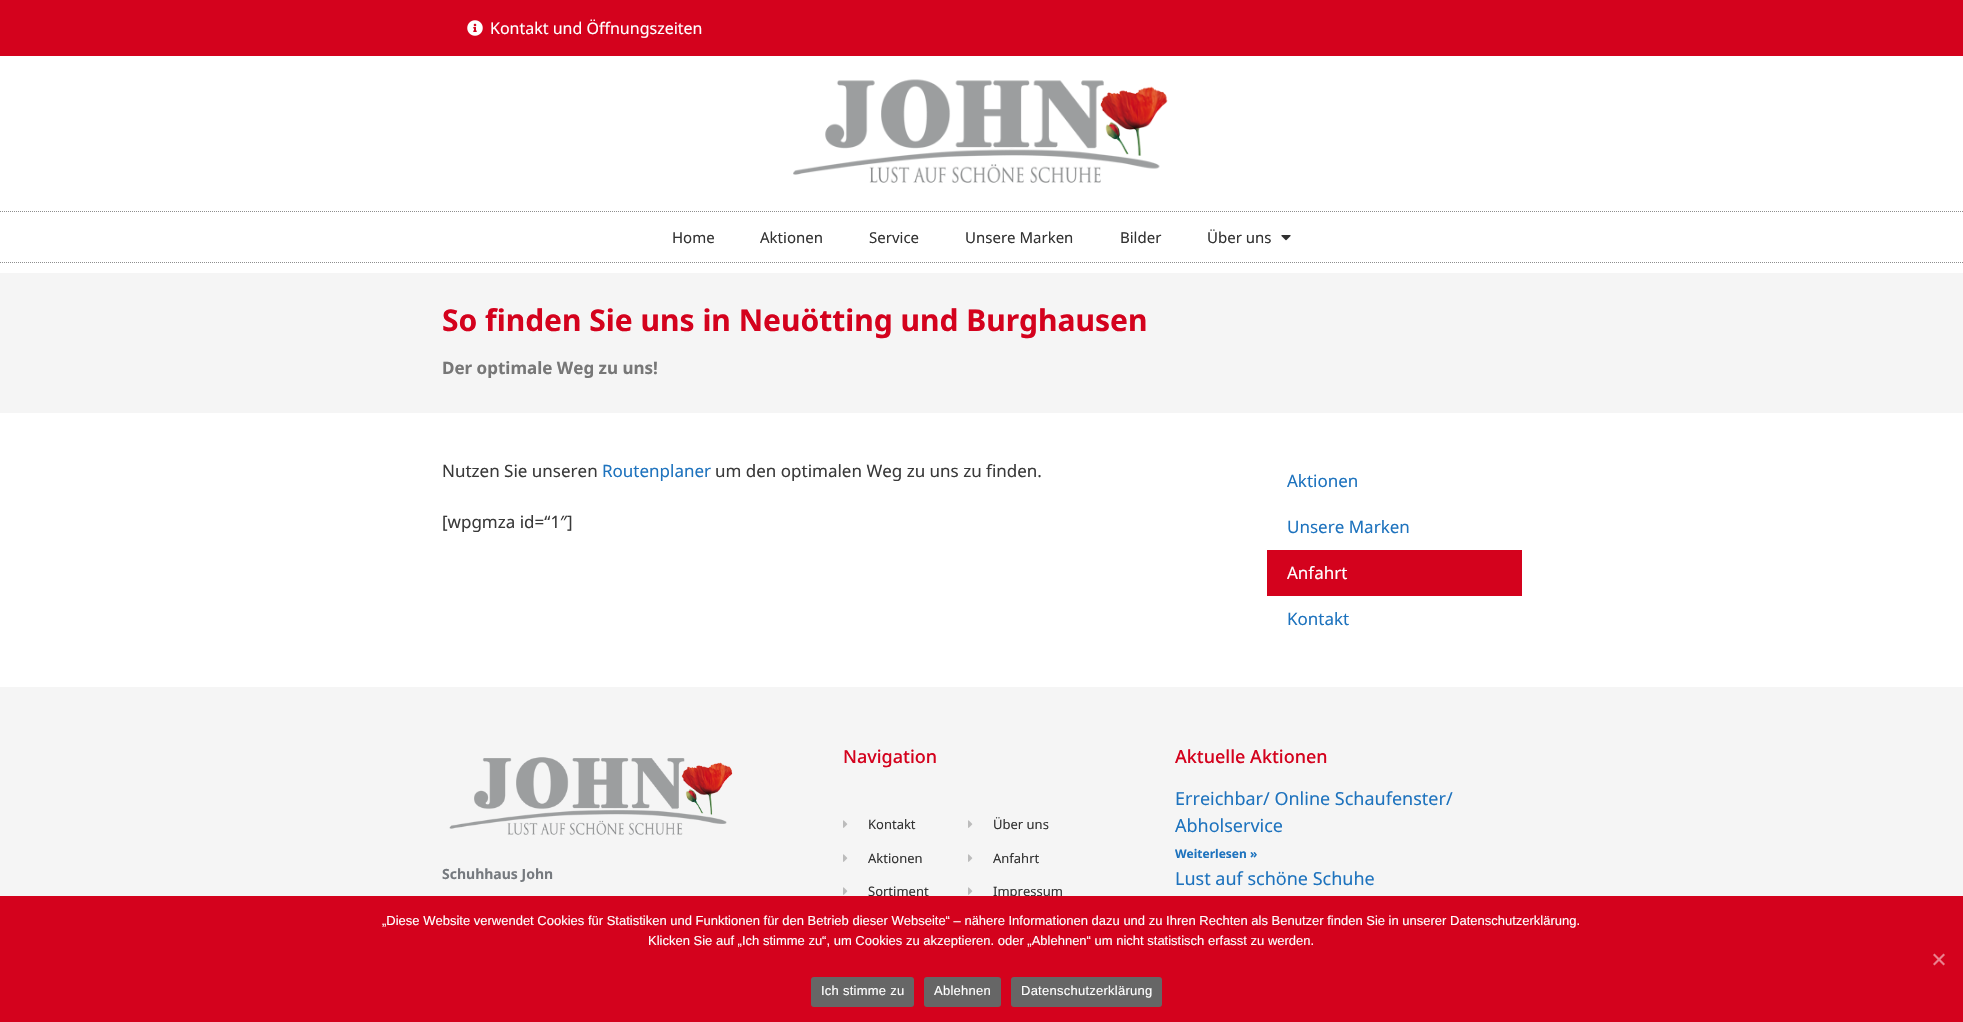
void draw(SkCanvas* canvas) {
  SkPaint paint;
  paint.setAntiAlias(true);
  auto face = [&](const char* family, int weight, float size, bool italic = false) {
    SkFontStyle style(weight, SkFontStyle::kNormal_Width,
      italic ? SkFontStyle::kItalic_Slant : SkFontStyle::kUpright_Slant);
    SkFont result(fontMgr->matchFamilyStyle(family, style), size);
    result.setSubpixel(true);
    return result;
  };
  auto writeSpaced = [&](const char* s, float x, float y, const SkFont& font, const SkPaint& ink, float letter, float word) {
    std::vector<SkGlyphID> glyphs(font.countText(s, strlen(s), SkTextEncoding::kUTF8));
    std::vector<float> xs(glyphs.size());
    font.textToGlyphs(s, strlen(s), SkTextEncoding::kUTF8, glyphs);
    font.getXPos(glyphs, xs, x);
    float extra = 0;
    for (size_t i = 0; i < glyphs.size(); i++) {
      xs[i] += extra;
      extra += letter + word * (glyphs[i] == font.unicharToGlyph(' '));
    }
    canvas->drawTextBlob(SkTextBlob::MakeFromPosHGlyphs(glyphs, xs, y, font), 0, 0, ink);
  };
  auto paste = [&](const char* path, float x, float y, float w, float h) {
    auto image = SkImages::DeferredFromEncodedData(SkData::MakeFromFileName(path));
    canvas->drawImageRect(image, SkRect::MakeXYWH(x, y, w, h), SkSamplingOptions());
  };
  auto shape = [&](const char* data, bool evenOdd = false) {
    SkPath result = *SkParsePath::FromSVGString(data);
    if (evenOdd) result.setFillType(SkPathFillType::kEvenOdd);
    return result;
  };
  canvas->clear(0xffffffff);
  paint.setColor(0xffd4021d);
  canvas->drawRect(SkRect::MakeXYWH(0, 0, 1963, 56), paint);
  paste("img/1.png", 467, 20, 16, 16);
  paste("img/2.png", 793, 79, 375, 104);
  paint.setStroke(true);
  paint.setStrokeWidth(1);
  paint.setColor(0xff8e8e8e);
  paint.setPathEffect(SkDashPathEffect::Make({{1, 1}}, 0));
  canvas->drawPath(shape("M0 211.5H1963"), paint);
  paint.setPathEffect(nullptr);
  paint.setPathEffect(SkDashPathEffect::Make({{1, 1}}, 0));
  canvas->drawPath(shape("M0 262.5H1963"), paint);
  paint.setPathEffect(nullptr);
  paste("img/3.png", 1281, 235, 10, 6);
  paint.setStroke(false);
  {
    const struct { float x, y, w, h; SkColor color; } items[] = {
      {0, 273, 1963, 140, 0xfff5f5f5},
      {1267, 550, 255, 46, 0xffd4021d},
      {0, 687, 1963, 209, 0xfff5f5f5},
    };
    for (auto [x, y, w, h, color] : items) {
      paint.setColor(color);
      canvas->drawRect(SkRect::MakeXYWH(x, y, w, h), paint);
    }
  }
  paste("img/4.png", 449, 757, 284, 78);
  paste("img/5.png", 843, 820, 5, 8);
  paste("img/5.png", 843, 854, 5, 8);
  paste("img/5.png", 843, 887, 5, 8);
  paste("img/5.png", 968, 820, 5, 8);
  paste("img/5.png", 968, 854, 5, 8);
  paste("img/5.png", 968, 887, 5, 8);
  auto f0 = face("Noto Sans", 400, 16);
  paint.setColor(0xffffffff);
  canvas->drawString("Kontakt und Öffnungszeiten", 490, 34, f0, paint);
  auto f1 = face("Noto Sans", 400, 15);
  paint.setColor(0xff333333);
  {
    const struct { const char* s; float x, y; } items[] = {
      {"Home", 672, 243},
      {"Aktionen", 760, 243},
      {"Service", 869, 243},
      {"Unsere Marken", 965, 243},
      {"Bilder", 1120, 243},
      {"Über uns", 1207, 243},
    };
    for (auto [s, x, y] : items) {
      canvas->drawString(s, x, y, f1, paint);
    }
  }
  auto f2 = face("Noto Sans", 700, 30);
  paint.setColor(0xffd4021d);
  canvas->drawString("So finden Sie uns in Neuötting und Burghausen", 442, 331, f2, paint);
  auto f3 = face("Noto Sans", 700, 17);
  paint.setColor(0xff777777);
  canvas->drawString("Der optimale Weg zu uns!", 442, 374, f3, paint);
  auto f4 = face("Noto Sans", 400, 17);
  paint.setColor(0xff3a3a3a);
  canvas->drawString("Nutzen Sie unseren", 442, 477, f4, paint);
  paint.setColor(0xff1e73be);
  canvas->drawString("Routenplaner", 602, 477, f4, paint);
  paint.setColor(0xff3a3a3a);
  canvas->drawString("um den optimalen Weg zu uns zu finden.", 715, 477, f4, paint);
  canvas->drawString("[wpgmza id=“1″]", 442, 528, f4, paint);
  paint.setColor(0xff1e73be);
  canvas->drawString("Aktionen", 1287, 487, f4, paint);
  canvas->drawString("Unsere Marken", 1287, 533, f4, paint);
  paint.setColor(0xffffffff);
  canvas->drawString("Anfahrt", 1287, 579, f4, paint);
  paint.setColor(0xff1e73be);
  canvas->drawString("Kontakt", 1287, 625, f4, paint);
  auto f5 = face("Noto Sans", 700, 14);
  paint.setColor(0xff767a7f);
  canvas->drawString("Schuhhaus John", 442, 879, f5, paint);
  auto f6 = face("Noto Sans", 500, 18);
  paint.setColor(0xffd4021d);
  canvas->drawString("Navigation", 843, 763, f6, paint);
  auto f7 = face("Noto Sans", 400, 13);
  paint.setColor(0xff333333);
  {
    const struct { const char* s; float x, y; } items[] = {
      {"Kontakt", 868, 829},
      {"Aktionen", 868, 863},
      {"Sortiment", 868, 896},
      {"Über uns", 993, 829},
      {"Anfahrt", 993, 863},
      {"Impressum", 993, 896},
    };
    for (auto [s, x, y] : items) {
      canvas->drawString(s, x, y, f7, paint);
    }
  }
  paint.setColor(0xffd4021d);
  canvas->drawString("Aktuelle Aktionen", 1175, 763, f6, paint);
  auto f8 = face("Noto Sans", 400, 18);
  paint.setColor(0xff1e73be);
  canvas->drawString("Erreichbar/ Online Schaufenster/", 1175, 805, f8, paint);
  canvas->drawString("Abholservice", 1175, 832, f8, paint);
  auto f9 = face("Noto Sans", 700, 12);
  canvas->drawString("Weiterlesen »", 1175, 858, f9, paint);
  canvas->drawString("Lust auf schöne Schuhe", 1175, 885, f8, paint);
  paint.setColor(0xffd4021d);
  canvas->drawRect(SkRect::MakeXYWH(0, 896, 1963, 126), paint);
  auto f10 = face("Liberation Sans", 400, 13);
  paint.setColor(0xffffffff);
  canvas->drawString("„Diese Website verwendet Cookies für Statistiken und Funktionen für den Betrieb dieser Webseite“ – nähere Informationen dazu und zu Ihren Rechten als Benutzer finden Sie in unserer Datenschutzerklärung.", 382, 925, f10, paint);
  canvas->drawString("Klicken Sie auf „Ich stimme zu“, um Cookies zu akzeptieren. oder „Ablehnen“ um nicht statistisch erfasst zu werden.", 648, 945, f10, paint);
  paint.setColor(0xffea818e);
  canvas->drawPath(shape("M1943.5 953.5L1945 955L1934.5 965.5L1933 964Z"), paint);
  canvas->drawPath(shape("M1933 955L1934.5 953.5L1945 964L1943.5 965.5Z"), paint);
  paint.setColor(0xff666666);
  canvas->drawRoundRect(SkRect::MakeXYWH(811, 977, 103, 30), 3, 3, paint);
  paint.setColor(0xffffffff);
  writeSpaced("Ich stimme zu", 821, 995, f10, paint, 0.25f, 0);
  paint.setColor(0xff666666);
  canvas->drawRoundRect(SkRect::MakeXYWH(924, 977, 77, 30), 3, 3, paint);
  paint.setColor(0xffffffff);
  writeSpaced("Ablehnen", 934, 995, f10, paint, 0.25f, 0);
  paint.setColor(0xff666666);
  canvas->drawRoundRect(SkRect::MakeXYWH(1011, 977, 151, 30), 3, 3, paint);
  paint.setColor(0xffffffff);
  writeSpaced("Datenschutzerklärung", 1021, 995, f10, paint, 0.25f, 0);
}
